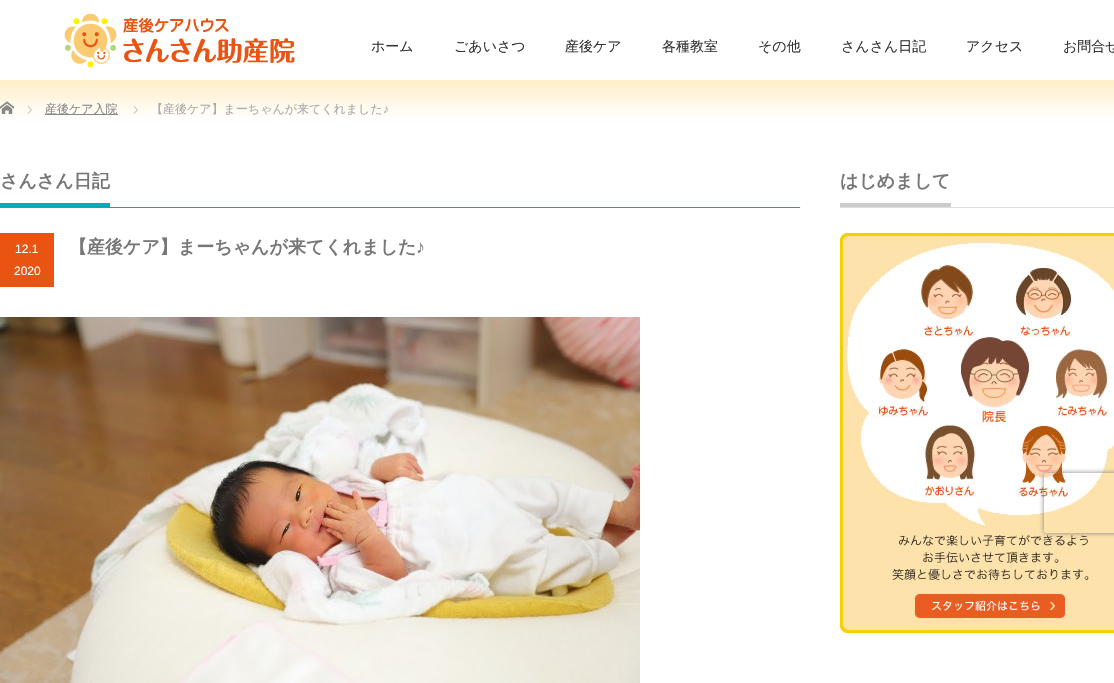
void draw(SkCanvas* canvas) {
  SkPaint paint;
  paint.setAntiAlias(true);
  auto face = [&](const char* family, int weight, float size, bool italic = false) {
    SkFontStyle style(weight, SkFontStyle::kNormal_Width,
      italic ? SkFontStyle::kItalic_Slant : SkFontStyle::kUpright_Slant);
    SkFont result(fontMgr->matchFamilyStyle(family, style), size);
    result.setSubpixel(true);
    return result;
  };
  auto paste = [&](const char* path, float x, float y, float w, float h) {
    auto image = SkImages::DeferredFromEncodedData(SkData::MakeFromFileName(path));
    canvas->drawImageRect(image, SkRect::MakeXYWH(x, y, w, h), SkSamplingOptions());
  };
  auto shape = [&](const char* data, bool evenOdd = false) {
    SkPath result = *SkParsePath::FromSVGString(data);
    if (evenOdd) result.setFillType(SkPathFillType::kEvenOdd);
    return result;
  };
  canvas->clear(0xffffffff);
  paste("img/1.png", 64, 13, 231, 55);
  paste("img/2.png", 0, 80, 1114, 37);
  paste("img/3.png", 0, 101, 14, 13);
  paste("img/4.png", 27, 106, 5, 8);
  paint.setColor(0xff888888);
  canvas->drawRect(SkRect::MakeXYWH(45, 114, 73, 1), paint);
  paste("img/4.png", 133, 106, 5, 8);
  {
    const struct { float x, y, w, h; SkColor color; } items[] = {
      {0, 207, 800, 1, 0xff05a9c5},
      {0, 203, 110, 4, 0xff05a9c5},
      {0, 233, 54, 54, 0xffea5413},
    };
    for (auto [x, y, w, h, color] : items) {
      paint.setColor(color);
      canvas->drawRect(SkRect::MakeXYWH(x, y, w, h), paint);
    }
  }
  paste("img/5.png", 0, 317, 640, 366);
  paint.setColor(0xffdddddd);
  canvas->drawRect(SkRect::MakeXYWH(840, 207, 274, 1), paint);
  paint.setColor(0xffcccccc);
  canvas->drawRect(SkRect::MakeXYWH(840, 203, 111, 4), paint);
  paste("img/6.png", 840, 233, 274, 400);
  canvas->save();
  canvas->clipPath(shape("M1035 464H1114V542H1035ZM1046 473H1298C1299 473 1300 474 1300 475V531C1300 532 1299 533 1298 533H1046C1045 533 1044 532 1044 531V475C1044 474 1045 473 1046 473Z", true), true);
  paint.setColor(0xff808080);
  paint.setMaskFilter(SkMaskFilter::MakeBlur(kNormal_SkBlurStyle, 2.5f));
  canvas->drawRoundRect(SkRect::MakeXYWH(1044, 473, 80, 60), 2, 2, paint);
  paint.setMaskFilter(nullptr);
  canvas->restore();
  auto f0 = face("WenQuanYi Zen Hei", 500, 14);
  paint.setColor(0xff333333);
  {
    const struct { const char* s; float x, y; } items[] = {
      {"ホーム", 371, 51},
      {"ごあいさつ", 454, 51},
      {"産後ケア", 565, 51},
      {"各種教室", 662, 51},
      {"その他", 758, 51},
      {"さんさん日記", 841, 51},
      {"アクセス", 966, 51},
      {"お問合せ", 1063, 51},
    };
    for (auto [s, x, y] : items) {
      canvas->drawString(s, x, y, f0, paint);
    }
  }
  auto f1 = face("WenQuanYi Zen Hei", 500, 12);
  paint.setColor(0xff888888);
  canvas->drawString("産後ケア入院", 45, 113, f1, paint);
  paint.setColor(0xffaaaaaa);
  canvas->drawString("【産後ケア】まーちゃんが来てくれました", 151, 113, f1, paint);
  auto f2 = face("Liberation Sans", 400, 12);
  canvas->drawString("♪", 383, 113, f2, paint);
  auto f3 = face("WenQuanYi Zen Hei", 700, 18);
  paint.setColor(0xff777777);
  canvas->drawString("さんさん日記", 0, 187, f3, paint);
  paint.setColor(0xffffffff);
  canvas->drawString("12.1", 15, 253, f2, paint);
  canvas->drawString("2020", 14, 275, f2, paint);
  paint.setColor(0xff777777);
  canvas->drawString("【産後ケア】まーちゃんが来てくれました", 69, 253, f3, paint);
  auto f4 = face("Liberation Sans", 700, 18);
  canvas->drawString("♪", 416, 253, f4, paint);
  canvas->drawString("はじめまして", 840, 187, f3, paint);
}
